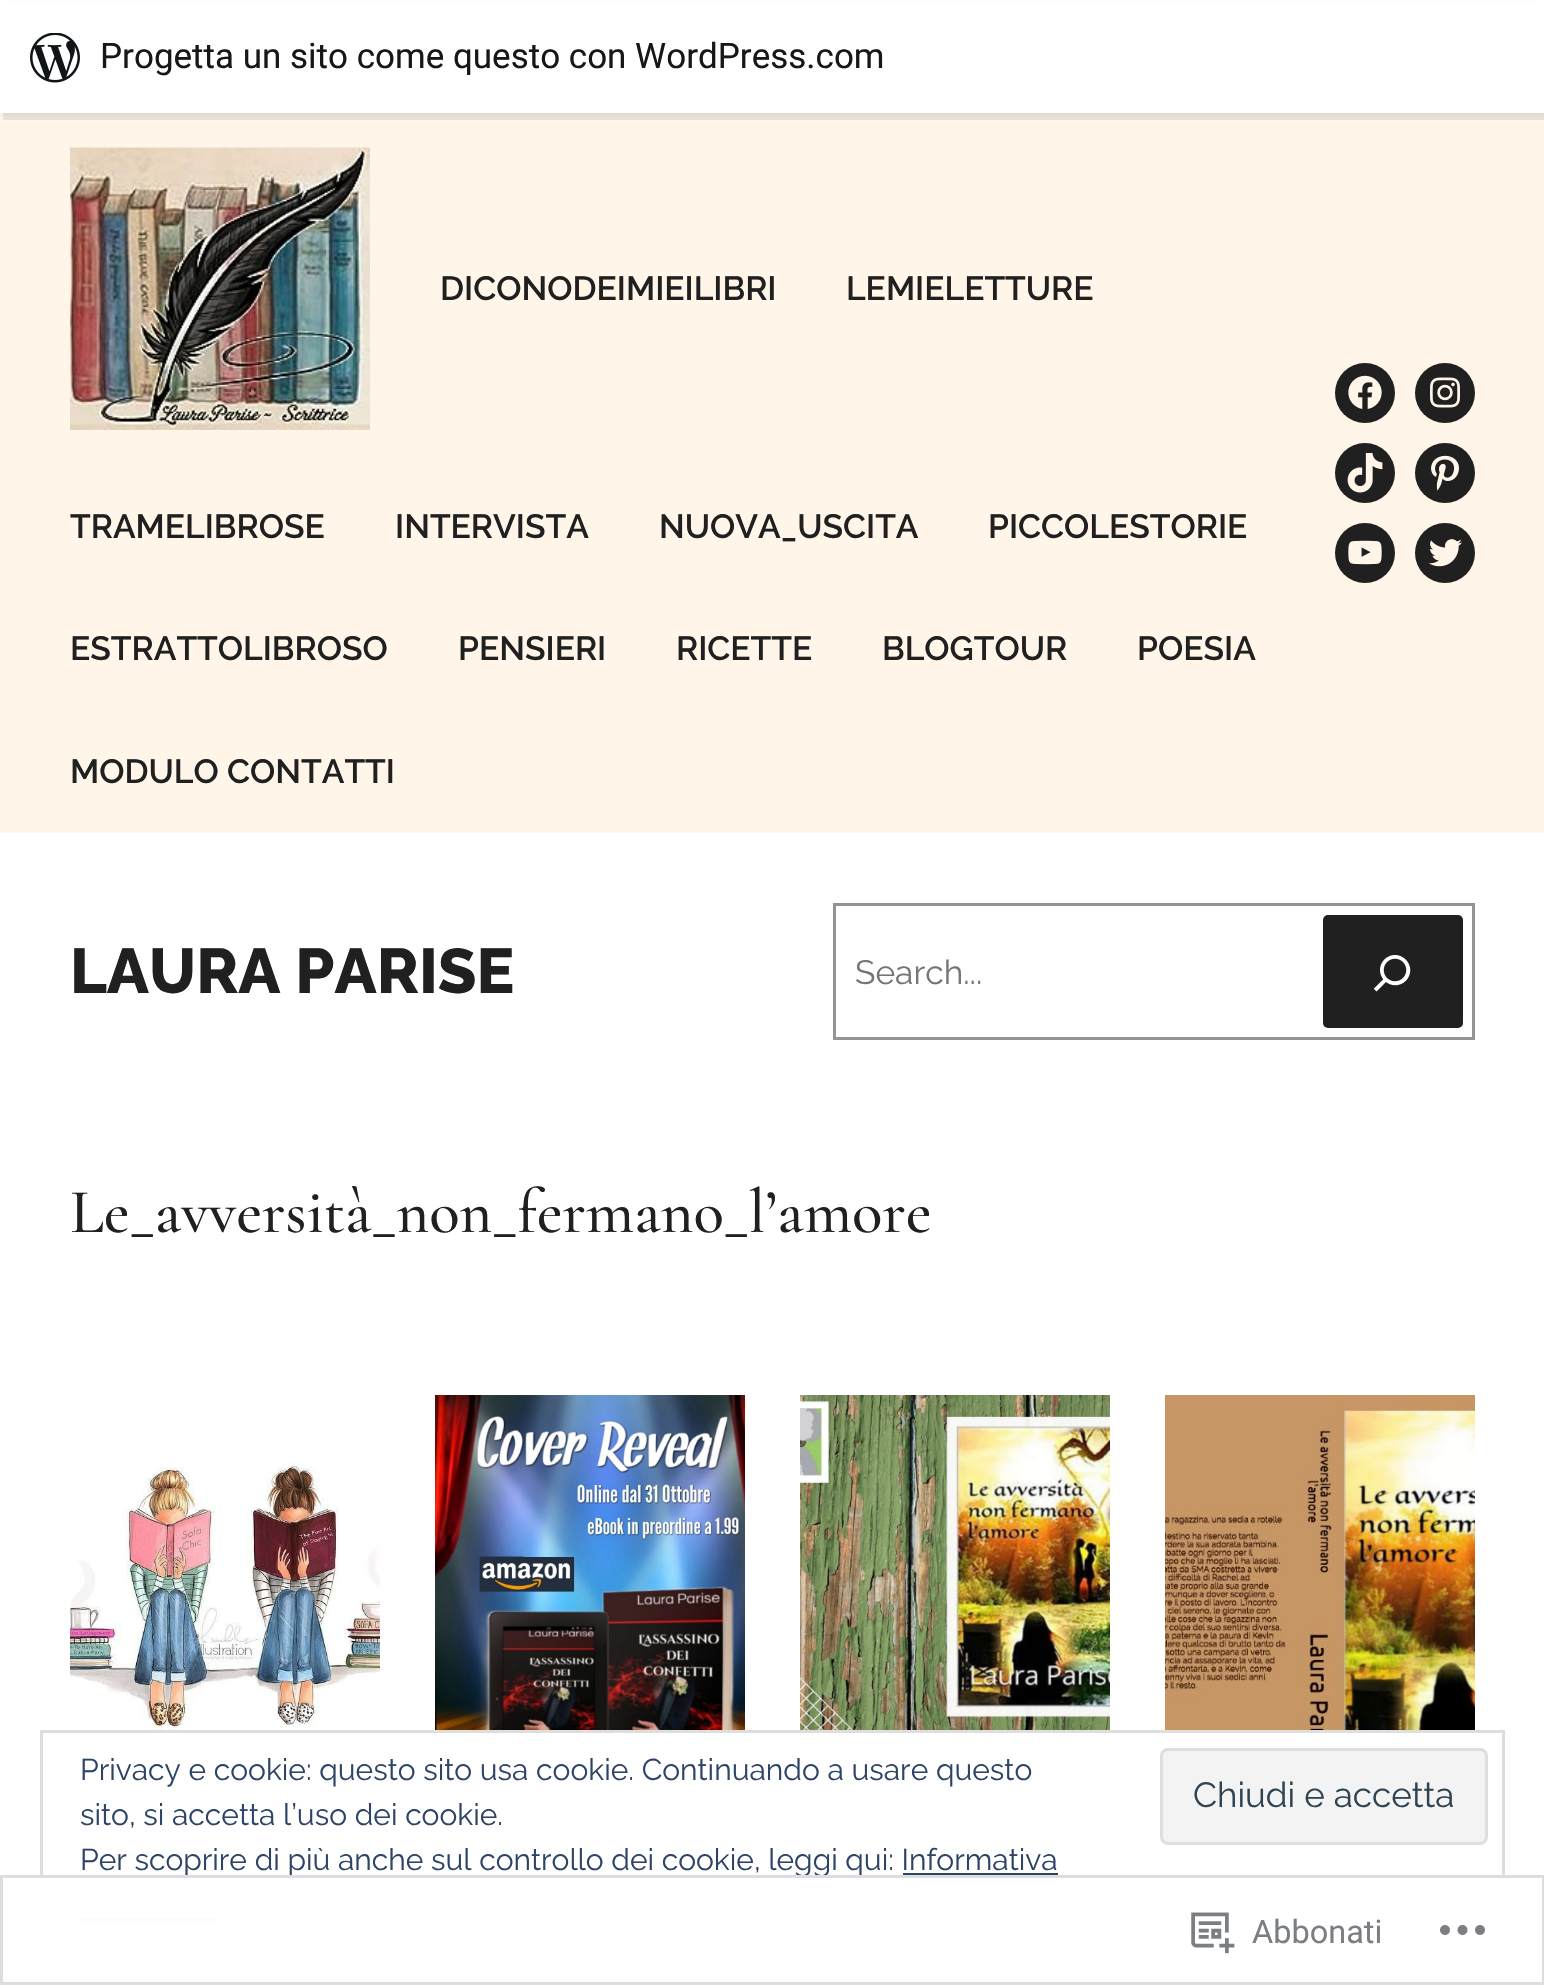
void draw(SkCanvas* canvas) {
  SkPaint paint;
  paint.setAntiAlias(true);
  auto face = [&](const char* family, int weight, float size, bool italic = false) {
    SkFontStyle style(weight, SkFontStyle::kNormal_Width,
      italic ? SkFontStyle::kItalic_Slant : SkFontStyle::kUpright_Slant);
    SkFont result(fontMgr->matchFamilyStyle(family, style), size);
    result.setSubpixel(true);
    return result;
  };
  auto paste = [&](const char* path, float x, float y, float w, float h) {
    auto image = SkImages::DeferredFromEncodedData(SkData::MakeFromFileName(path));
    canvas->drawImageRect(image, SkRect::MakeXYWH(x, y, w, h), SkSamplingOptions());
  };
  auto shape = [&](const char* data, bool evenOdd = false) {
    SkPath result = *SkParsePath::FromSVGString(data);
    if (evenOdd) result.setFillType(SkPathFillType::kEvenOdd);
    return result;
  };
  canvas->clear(0xffffffff);
  paint.setColor(0xfffff6e9);
  canvas->drawRect(SkRect::MakeXYWH(0, 113, 1544, 720), paint);
  paint.setColor(0x0d000000);
  paint.setMaskFilter(SkMaskFilter::MakeBlur(kNormal_SkBlurStyle, 2.5f));
  canvas->drawRect(SkRect::MakeXYWH(0, 3, 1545, 112), paint);
  paint.setMaskFilter(nullptr);
  paint.setColor(0x14000000);
  canvas->drawPath(shape("M3 112V120H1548V8H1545V112Z"), paint);
  paint.setColor(0xffffffff);
  canvas->drawRect(SkRect::MakeXYWH(0, 1, 1544, 112), paint);
  paste("img/1.png", 30, 33, 50, 50);
  paste("img/2.png", 70, 147, 300, 283);
  paint.setColor(0xff202020);
  canvas->drawCircle(1365, 393, 30, paint);
  paste("img/3.png", 1348, 375, 34, 34);
  canvas->drawCircle(1445, 393, 30, paint);
  paste("img/4.png", 1430, 377, 30, 31);
  canvas->drawCircle(1365, 473, 30, paint);
  paste("img/5.png", 1347, 453, 36, 40);
  canvas->drawCircle(1445, 473, 30, paint);
  paste("img/6.png", 1431, 455, 28, 36);
  canvas->drawCircle(1365, 553, 30, paint);
  paste("img/7.png", 1348, 540, 34, 25);
  canvas->drawCircle(1445, 553, 30, paint);
  paste("img/8.png", 1429, 539, 33, 28);
  paint.setStroke(true);
  paint.setStrokeWidth(3);
  paint.setColor(0xff949494);
  canvas->drawRect(SkRect::MakeXYWH(834.5f, 904.5f, 639, 134), paint);
  paint.setStroke(false);
  paint.setColor(0xff202020);
  canvas->drawRoundRect(SkRect::MakeXYWH(1323, 915, 140, 113), 5, 5, paint);
  paste("img/9.png", 1373, 955, 38, 37);
  paste("img/10.png", 70, 1463, 310, 267);
  paste("img/11.png", 435, 1395, 310, 335);
  paste("img/12.png", 800, 1395, 310, 335);
  paste("img/13.png", 1165, 1395, 310, 335);
  paint.setStroke(true);
  paint.setColor(0xffdedede);
  canvas->drawRect(SkRect::MakeXYWH(41.5f, 1731.5f, 1462, 212), paint);
  paint.setStroke(false);
  paint.setColor(0xfff3f3f3);
  canvas->drawRoundRect(SkRect::MakeXYWH(1161.5f, 1749.5f, 325, 94), 6.5f, 6.5f, paint);
  paint.setStroke(true);
  paint.setColor(0xffdedede);
  canvas->drawRoundRect(SkRect::MakeXYWH(1161.5f, 1749.5f, 325, 94), 6.5f, 6.5f, paint);
  paint.setStroke(false);
  paint.setColor(0xff2e4467);
  canvas->drawRect(SkRect::MakeXYWH(903, 1873, 155, 3), paint);
  canvas->drawRect(SkRect::MakeXYWH(80, 1918, 140, 3), paint);
  auto f0 = face("Roboto", 400, 35);
  paint.setColor(0xff171717);
  canvas->drawString("Progetta un sito come questo con WordPress.com", 100, 68, f0, paint);
  auto f1 = face("Raleway", 600, 33.6f);
  paint.setColor(0xff202020);
  {
    const struct { const char* s; float x, y; } items[] = {
      {"DICONODEIMIEILIBRI", 440, 300},
      {"LEMIELETTURE", 846, 300},
      {"TRAMELIBROSE", 70, 538},
      {"INTERVISTA", 395, 538},
      {"NUOVA_USCITA", 659, 538},
      {"PICCOLESTORIE", 988, 538},
      {"ESTRATTOLIBROSO", 70, 660},
      {"PENSIERI", 458, 660},
      {"RICETTE", 676, 660},
      {"BLOGTOUR", 882, 660},
      {"POESIA", 1137, 660},
      {"MODULO CONTATTI", 70, 783},
    };
    for (auto [s, x, y] : items) {
      canvas->drawString(s, x, y, f1, paint);
    }
  }
  auto f2 = face("Raleway", 800, 63);
  canvas->drawString("LAURA PARISE", 70, 993, f2, paint);
  auto f3 = face("Raleway", 400, 33.6f);
  paint.setColor(0xff757575);
  canvas->drawString("Search...", 855, 984, f3, paint);
  auto f4 = face("Cormorant Garamond", 500, 63);
  paint.setColor(0xff202020);
  canvas->drawString("Le_avversità_non_fermano_l’amore", 70, 1232, f4, paint);
  auto f5 = face("Raleway", 400, 30);
  paint.setColor(0xff2e4467);
  canvas->drawString("Privacy e cookie: questo sito usa cookie. Continuando a usare questo", 80, 1780, f5, paint);
  auto f6 = face("Raleway", 400, 35);
  paint.setColor(0xff2e4453);
  canvas->drawString("Chiudi e accetta", 1193, 1807, f6, paint);
  paint.setColor(0xff2e4467);
  canvas->drawString("sito, si accetta l’uso dei cookie.", 80, 1825, f5, paint);
  canvas->drawString("Per scoprire di più anche sul controllo dei cookie, leggi qui: Informativa", 80, 1870, f5, paint);
  paint.setColor(0xfaffffff);
  canvas->drawRect(SkRect::MakeXYWH(40, 1875, 1465, 70), paint);
  paint.setStroke(true);
  paint.setColor(0xfadcdcde);
  canvas->drawRect(SkRect::MakeXYWH(1.5f, 1876.5f, 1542, 107), paint);
  paste("img/14.png", 1191, 1912, 44, 42);
  auto f7 = face("Roboto", 400, 32.5f);
  paint.setStroke(false);
  paint.setColor(0xff7b7f84);
  canvas->drawString("Abbonati", 1252, 1943, f7, paint);
  paste("img/15.png", 1440, 1925, 45, 10);
}
